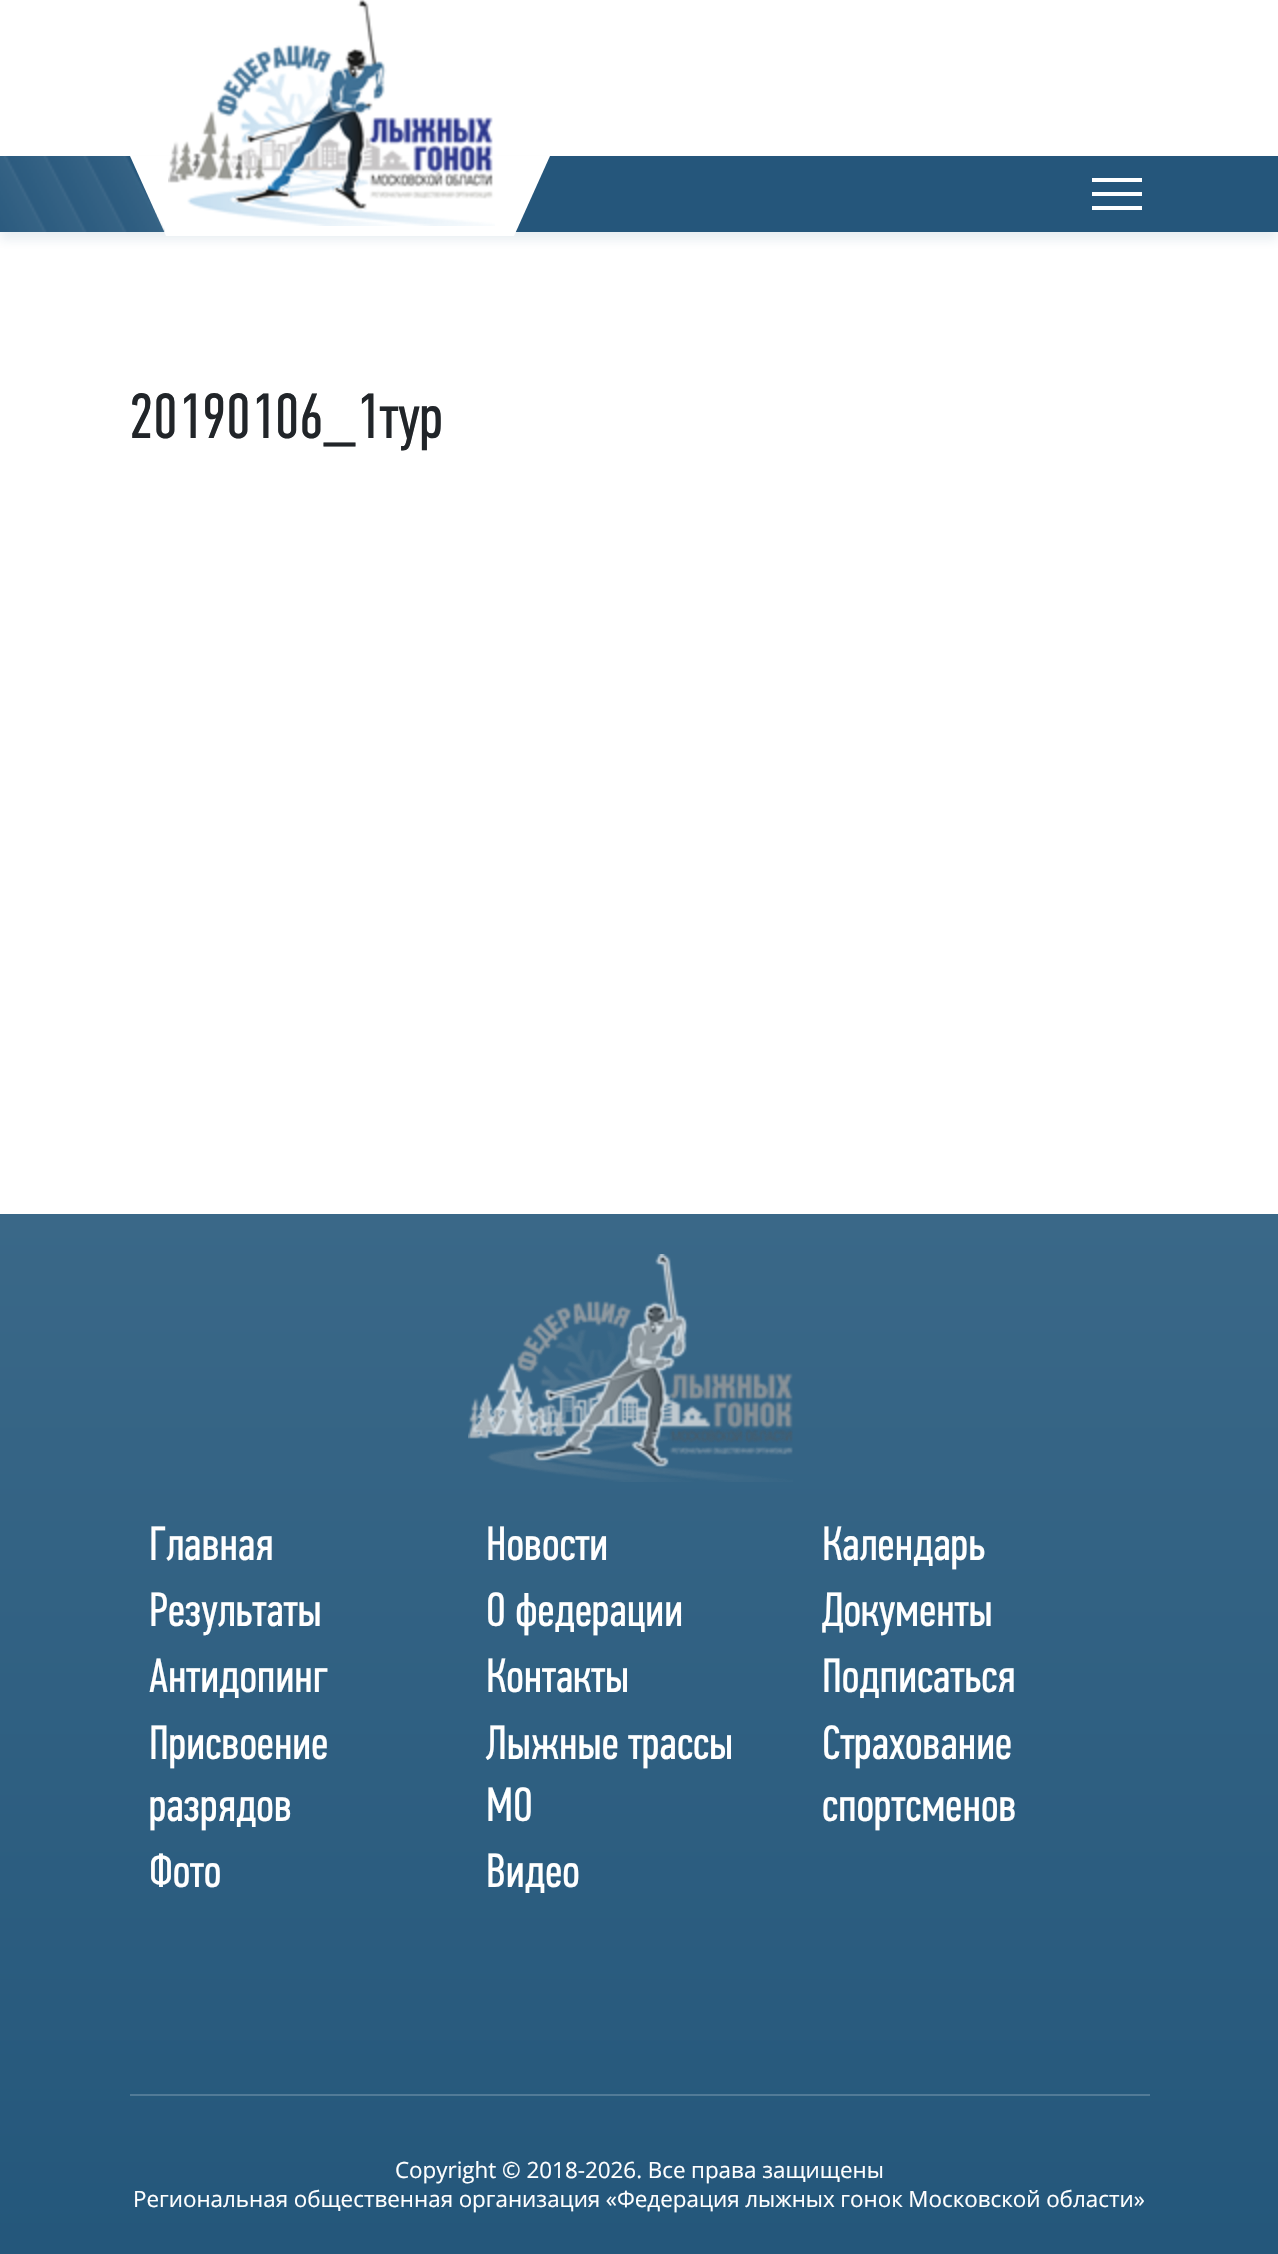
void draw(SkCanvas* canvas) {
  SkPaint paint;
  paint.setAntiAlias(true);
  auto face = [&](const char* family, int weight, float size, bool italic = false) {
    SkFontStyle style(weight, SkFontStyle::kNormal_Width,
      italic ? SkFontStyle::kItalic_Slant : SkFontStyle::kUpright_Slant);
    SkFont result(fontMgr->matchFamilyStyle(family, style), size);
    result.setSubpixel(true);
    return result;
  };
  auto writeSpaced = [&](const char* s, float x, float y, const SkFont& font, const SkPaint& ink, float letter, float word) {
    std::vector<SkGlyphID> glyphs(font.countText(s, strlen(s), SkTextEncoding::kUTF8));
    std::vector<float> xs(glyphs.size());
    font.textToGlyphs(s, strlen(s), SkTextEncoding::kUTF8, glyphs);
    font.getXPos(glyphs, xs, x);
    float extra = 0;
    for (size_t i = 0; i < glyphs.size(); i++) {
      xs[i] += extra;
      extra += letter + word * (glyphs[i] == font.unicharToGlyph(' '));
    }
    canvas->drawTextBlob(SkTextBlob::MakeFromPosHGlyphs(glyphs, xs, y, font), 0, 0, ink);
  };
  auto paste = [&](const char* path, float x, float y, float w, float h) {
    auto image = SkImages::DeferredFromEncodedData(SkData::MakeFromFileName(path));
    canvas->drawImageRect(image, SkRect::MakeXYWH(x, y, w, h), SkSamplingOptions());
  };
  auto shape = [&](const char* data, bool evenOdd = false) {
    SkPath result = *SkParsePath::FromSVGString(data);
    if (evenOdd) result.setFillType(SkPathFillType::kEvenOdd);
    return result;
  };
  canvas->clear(0xffffffff);
  paint.setColor(0x1a25567b);
  paint.setMaskFilter(SkMaskFilter::MakeBlur(kNormal_SkBlurStyle, 5));
  canvas->drawRect(SkRect::MakeXYWH(0, 164, 1278, 76), paint);
  paint.setMaskFilter(nullptr);
  paint.setColor(0xff25567b);
  canvas->drawRect(SkRect::MakeXYWH(123, 156, 1155, 76), paint);
  paint.setColor(0xffffffff);
  canvas->drawPath(shape("M130 156H550L514 236H166Z"), paint);
  paste("img/1.png", 0, 156, 165, 76);
  paste("img/2.png", 168, 0, 327, 226);
  {
    const struct { float x, y, w, h; SkColor color; } items[] = {
      {1092, 178, 50, 4, 0xffffffff},
      {1092, 192, 50, 4, 0xffffffff},
      {1092, 206, 50, 4, 0xffffffff},
    };
    for (auto [x, y, w, h, color] : items) {
      paint.setColor(color);
      canvas->drawRect(SkRect::MakeXYWH(x, y, w, h), paint);
    }
  }
  {
    const SkColor colors[] = {0xff3a6888, 0xff24577b};
    const float stops[] = {0, 1};
    const SkPoint ends[] = {{639, 1214}, {639, 2254}};
    paint.setShader(SkGradientShader::MakeLinear(ends, colors, stops, 2, SkTileMode::kClamp));
    paint.setAlpha(255);
  }
  canvas->drawRect(SkRect::MakeXYWH(0, 1214, 1278, 1040), paint);
  paste("img/3.png", 468, 1254, 325, 228);
  paint.setShader(nullptr);
  paint.setColor(0xff527b97);
  canvas->drawRect(SkRect::MakeXYWH(130, 2094, 1020, 2), paint);
  auto f0 = face("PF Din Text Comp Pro", 400, 64);
  paint.setColor(0xff212529);
  canvas->drawString("20190106_1тур", 129, 438, f0, paint);
  auto f1 = face("PF Din Text Comp Pro", 400, 48);
  paint.setColor(0xffffffff);
  {
    const struct { const char* s; float x, y; } items[] = {
      {"Главная", 149, 1560},
      {"Новости", 486, 1560},
      {"Календарь", 822, 1560},
      {"Результаты", 149, 1626},
      {"О федерации", 486, 1626},
      {"Документы", 822, 1626},
      {"Антидопинг", 149, 1692},
      {"Контакты", 486, 1692},
      {"Подписаться", 822, 1692},
      {"Присвоение", 149, 1759},
      {"разрядов", 149, 1821},
      {"Лыжные трассы", 486, 1759},
      {"МО", 486, 1821},
      {"Страхование", 822, 1759},
      {"спортсменов", 822, 1821},
      {"Фото", 149, 1887},
      {"Видео", 486, 1887},
    };
    for (auto [s, x, y] : items) {
      canvas->drawString(s, x, y, f1, paint);
    }
  }
  auto f2 = face("Open Sans", 400, 22.4f);
  canvas->drawString("Copyright © 2018-2026. Все", 395, 2178, f2, paint);
  canvas->drawString("права защищены", 691, 2178, f2, paint);
  writeSpaced("Региональная общественная организация «Федерация лыжных гонок Московской области»", 133, 2207, f2, paint, 0, -0.25f);
}
